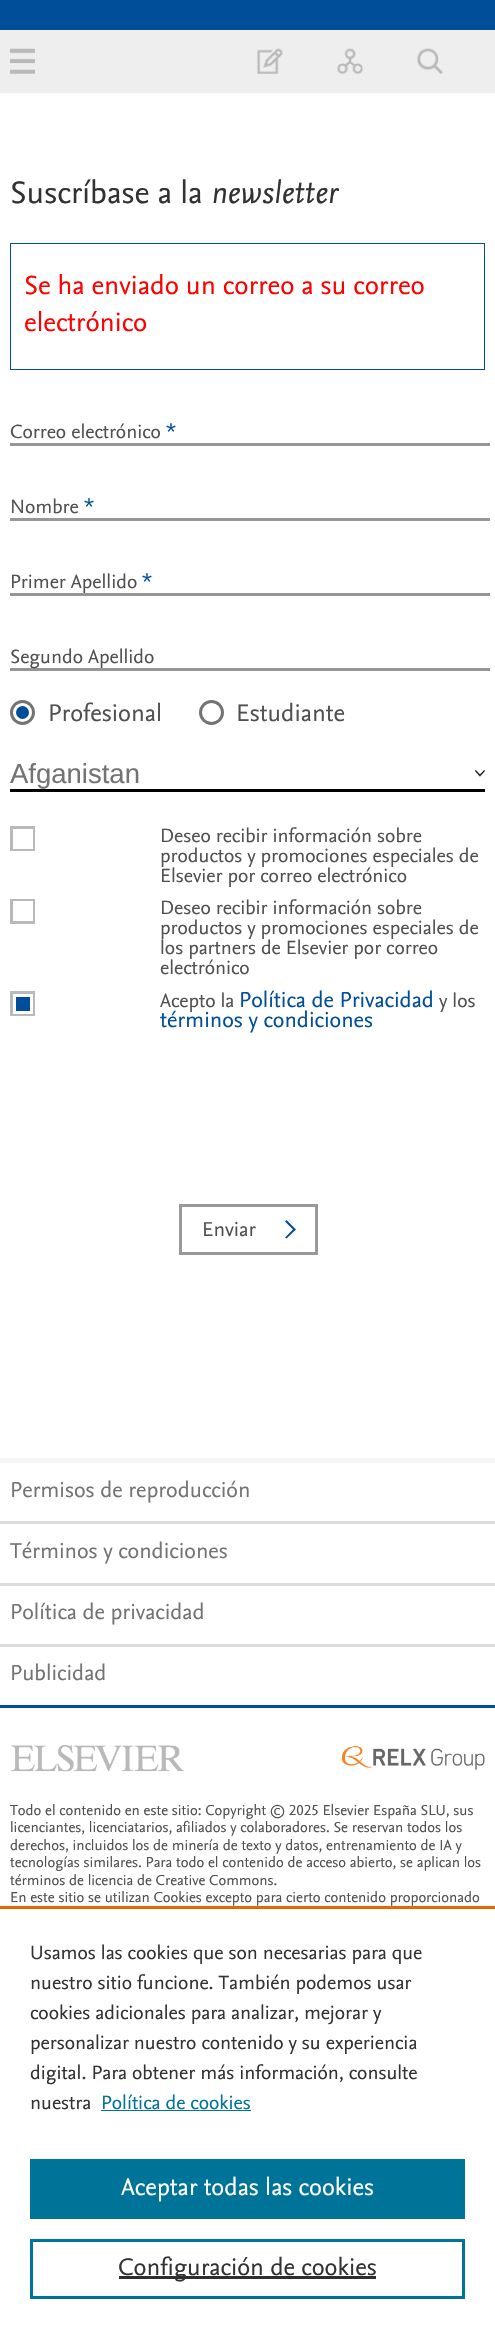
void draw(SkCanvas* canvas) {
  SkPaint paint;
  paint.setAntiAlias(true);
  auto face = [&](const char* family, int weight, float size, bool italic = false) {
    SkFontStyle style(weight, SkFontStyle::kNormal_Width,
      italic ? SkFontStyle::kItalic_Slant : SkFontStyle::kUpright_Slant);
    SkFont result(fontMgr->matchFamilyStyle(family, style), size);
    result.setSubpixel(true);
    return result;
  };
  auto paste = [&](const char* path, float x, float y, float w, float h) {
    auto image = SkImages::DeferredFromEncodedData(SkData::MakeFromFileName(path));
    canvas->drawImageRect(image, SkRect::MakeXYWH(x, y, w, h), SkSamplingOptions());
  };
  auto shape = [&](const char* data, bool evenOdd = false) {
    SkPath result = *SkParsePath::FromSVGString(data);
    if (evenOdd) result.setFillType(SkPathFillType::kEvenOdd);
    return result;
  };
  canvas->clear(0xffffffff);
  paint.setColor(0xff004e9a);
  canvas->drawRect(SkRect::MakeXYWH(0, 0, 495, 30), paint);
  paint.setColor(0xffeeeeee);
  canvas->drawRect(SkRect::MakeXYWH(0, 30, 495, 63), paint);
  paste("img/1.png", 10, 48, 25, 26);
  paste("img/2.png", 257, 48, 26, 26);
  paste("img/3.png", 337, 48, 26, 26);
  paste("img/4.png", 417, 48, 26, 26);
  paint.setStroke(true);
  paint.setStrokeWidth(1);
  paint.setColor(0xff004e9a);
  canvas->drawRect(SkRect::MakeXYWH(10.5f, 243.5f, 474, 126), paint);
  paint.setStroke(false);
  {
    const struct { float x, y, w, h; SkColor color; } items[] = {
      {10, 443, 480, 3, 0xff969696},
      {10, 518, 480, 3, 0xff969696},
      {10, 593, 480, 3, 0xff969696},
      {10, 668, 480, 3, 0xff969696},
    };
    for (auto [x, y, w, h, color] : items) {
      paint.setColor(color);
      canvas->drawRect(SkRect::MakeXYWH(x, y, w, h), paint);
    }
  }
  paint.setStroke(true);
  paint.setStrokeWidth(3);
  paint.setColor(0xff737373);
  canvas->drawCircle(22.5f, 712.5f, 11, paint);
  paint.setStroke(false);
  paint.setColor(0xff004e9a);
  canvas->drawCircle(22.5f, 712.5f, 6.5f, paint);
  paint.setStroke(true);
  paint.setColor(0xff737373);
  canvas->drawCircle(211.5f, 712.5f, 11, paint);
  paste("img/5.png", 475, 770, 10, 7);
  paint.setStroke(false);
  {
    const struct { float x, y, w, h; SkColor color; } items[] = {
      {10, 789, 475, 3, 0xff000000},
      {10, 826, 25, 25, 0xffb9b9b9},
      {13, 829, 20, 20, 0xffffffff},
      {10, 899, 25, 25, 0xffb9b9b9},
      {13, 901, 20, 20, 0xffffffff},
      {10, 991, 25, 25, 0xffb9b9b9},
    };
    for (auto [x, y, w, h, color] : items) {
      paint.setColor(color);
      canvas->drawRect(SkRect::MakeXYWH(x, y, w, h), paint);
    }
  }
  paint.setColor(0xff004e9a);
  canvas->drawRect(SkRect::MakeXYWH(14.5f, 995.5f, 17, 17), paint);
  paint.setStroke(true);
  paint.setColor(0xffffffff);
  canvas->drawRect(SkRect::MakeXYWH(14.5f, 995.5f, 17, 17), paint);
  paint.setStroke(false);
  paint.setColor(0xff004e9a);
  canvas->drawPath(shape("M286.5 1238.5L285 1237.5L293 1229.5L285 1221.5L286.5 1220L296 1229.5Z"), paint);
  paint.setStroke(true);
  paint.setColor(0xff999999);
  canvas->drawRect(SkRect::MakeXYWH(180.5f, 1205.5f, 136, 48), paint);
  paint.setStroke(false);
  {
    const struct { float x, y, w, h; SkColor color; } items[] = {
      {0, 1458, 495, 5, 0xfff5f5f5},
      {0, 1521, 495, 3, 0xffdcdcdc},
      {0, 1583, 495, 3, 0xffdcdcdc},
      {0, 1644, 495, 3, 0xffdcdcdc},
      {0, 1705, 495, 3, 0xff004e9a},
    };
    for (auto [x, y, w, h, color] : items) {
      paint.setColor(color);
      canvas->drawRect(SkRect::MakeXYWH(x, y, w, h), paint);
    }
  }
  paste("img/6.png", 11, 1745, 173, 27);
  paste("img/7.png", 341, 1745, 144, 25);
  {
    const struct { float x, y, w, h; SkColor color; } items[] = {
      {0, 1906, 495, 3, 0xffeb6500},
      {101, 2110, 150, 1, 0xff007398},
      {30, 2159, 435, 60, 0xff007398},
    };
    for (auto [x, y, w, h, color] : items) {
      paint.setColor(color);
      canvas->drawRect(SkRect::MakeXYWH(x, y, w, h), paint);
    }
  }
  paint.setStroke(true);
  canvas->drawRect(SkRect::MakeXYWH(31.5f, 2240.5f, 432, 57), paint);
  paint.setStroke(false);
  paint.setColor(0xff2e2e2e);
  canvas->drawRect(SkRect::MakeXYWH(119, 2276, 257, 3), paint);
  auto f0 = face("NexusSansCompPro", 400, 32.5f);
  paint.setColor(0xff323232);
  canvas->drawString("Suscríbase a la", 10, 203, f0, paint);
  auto f1 = face("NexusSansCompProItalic", 400, 32.5f, true);
  canvas->drawString("newsletter", 211, 203, f1, paint);
  auto f2 = face("NexusSansCompPro", 400, 27.5f);
  paint.setColor(0xffff0000);
  canvas->drawString("Se ha enviado un correo a su correo", 24, 294, f2, paint);
  canvas->drawString("electrónico", 24, 331, f2, paint);
  auto f3 = face("NexusSansCompPro", 400, 20);
  paint.setColor(0xff505050);
  canvas->drawString("Correo electrónico", 10, 438, f3, paint);
  paint.setColor(0xff004e9a);
  canvas->drawString("*", 166, 438, f3, paint);
  paint.setColor(0xff505050);
  canvas->drawString("Nombre", 10, 513, f3, paint);
  paint.setColor(0xff004e9a);
  canvas->drawString("*", 84, 513, f3, paint);
  paint.setColor(0xff505050);
  canvas->drawString("Primer Apellido", 10, 588, f3, paint);
  paint.setColor(0xff004e9a);
  canvas->drawString("*", 142, 588, f3, paint);
  paint.setColor(0xff505050);
  canvas->drawString("Segundo Apellido", 10, 663, f3, paint);
  auto f4 = face("NexusSansCompPro", 400, 25);
  canvas->drawString("Profesional", 48, 721, f4, paint);
  canvas->drawString("Estudiante", 236, 721, f4, paint);
  auto f5 = face("Liberation Sans", 400, 27.5f);
  paint.setColor(0xff737373);
  canvas->drawString("Afganistan", 10, 783, f5, paint);
  paint.setColor(0xff505050);
  {
    const struct { const char* s; float x, y; } items[] = {
      {"Deseo recibir información sobre", 160, 842},
      {"productos y promociones especiales de", 160, 862},
      {"Elsevier por correo electrónico", 160, 882},
      {"Deseo recibir información sobre", 160, 914},
      {"productos y promociones especiales de", 160, 934},
      {"los partners de Elsevier por correo", 160, 954},
      {"electrónico", 160, 974},
      {"Acepto la", 160, 1007},
    };
    for (auto [s, x, y] : items) {
      canvas->drawString(s, x, y, f3, paint);
    }
  }
  auto f6 = face("NexusSansCompPro", 400, 22.5f);
  paint.setColor(0xff004e9a);
  canvas->drawString("Política de Privacidad", 239, 1007, f6, paint);
  paint.setColor(0xff505050);
  canvas->drawString("y los", 439, 1007, f3, paint);
  paint.setColor(0xff004e9a);
  canvas->drawString("términos y condiciones", 160, 1027, f6, paint);
  auto f7 = face("NexusSansCompPro", 400, 21);
  paint.setColor(0xff505050);
  canvas->drawString("Enviar", 202, 1236, f7, paint);
  paint.setColor(0xff737373);
  {
    const struct { const char* s; float x, y; } items[] = {
      {"Permisos de reproducción", 10, 1497},
      {"Términos y condiciones", 10, 1558},
      {"Política de privacidad", 10, 1619},
      {"Publicidad", 10, 1680},
    };
    for (auto [s, x, y] : items) {
      canvas->drawString(s, x, y, f6, paint);
    }
  }
  auto f8 = face("NexusSansCompPro", 400, 15);
  paint.setColor(0xff505050);
  {
    const struct { const char* s; float x, y; } items[] = {
      {"Todo el contenido en este sitio: Copyright © 2025 Elsevier España SLU, sus", 10, 1815},
      {"licenciantes, licenciatarios, afiliados y colaboradores. Se reservan todos los", 10, 1832},
      {"derechos, incluidos los de minería de texto y datos, entrenamiento de IA y", 10, 1850},
      {"tecnologías similares. Para todo el contenido de acceso abierto, se aplican los", 10, 1867},
      {"términos de licencia de Creative Commons.", 10, 1885},
      {"En este sitio se utilizan Cookies excepto para cierto contenido proporcionado", 10, 1902},
    };
    for (auto [s, x, y] : items) {
      canvas->drawString(s, x, y, f8, paint);
    }
  }
  paint.setColor(0xff323232);
  {
    const struct { const char* s; float x, y; } items[] = {
      {"Usamos las cookies que son necesarias para que", 30, 1959},
      {"nuestro sitio funcione. También podemos usar", 30, 1989},
      {"cookies adicionales para analizar, mejorar y", 30, 2019},
      {"personalizar nuestro contenido y su experiencia", 30, 2049},
      {"digital. Para obtener más información, consulte", 30, 2079},
      {"nuestra", 30, 2109},
    };
    for (auto [s, x, y] : items) {
      canvas->drawString(s, x, y, f3, paint);
    }
  }
  paint.setColor(0xff007398);
  canvas->drawString("Política de cookies", 101, 2109, f3, paint);
  paint.setColor(0xffffffff);
  canvas->drawString("Aceptar todas las cookies", 121, 2195, f4, paint);
  paint.setColor(0xff323232);
  canvas->drawString("Configuración de cookies", 118, 2275, f4, paint);
}
